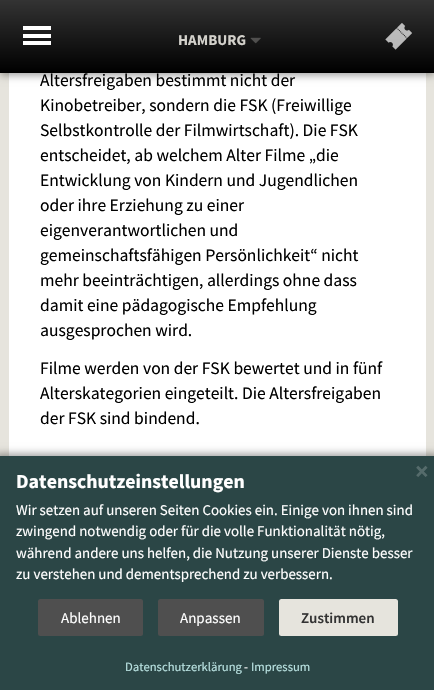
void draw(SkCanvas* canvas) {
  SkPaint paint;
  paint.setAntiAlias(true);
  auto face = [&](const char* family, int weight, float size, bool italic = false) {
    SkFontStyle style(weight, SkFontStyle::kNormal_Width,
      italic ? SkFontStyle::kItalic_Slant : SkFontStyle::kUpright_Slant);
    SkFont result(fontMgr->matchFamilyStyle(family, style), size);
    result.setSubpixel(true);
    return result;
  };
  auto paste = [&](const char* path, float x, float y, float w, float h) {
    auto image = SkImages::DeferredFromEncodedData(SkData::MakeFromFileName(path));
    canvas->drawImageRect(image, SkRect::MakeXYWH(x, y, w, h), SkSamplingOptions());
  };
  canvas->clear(0xffe6e4dd);
  paint.setColor(0xffffffff);
  canvas->drawRect(SkRect::MakeXYWH(9, 73, 417, 383), paint);
  paint.setColor(0x66000000);
  paint.setMaskFilter(SkMaskFilter::MakeBlur(kNormal_SkBlurStyle, 4));
  canvas->drawRect(SkRect::MakeXYWH(0, 3, 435, 72), paint);
  paint.setMaskFilter(nullptr);
  {
    const SkColor colors[] = {0xff333333, 0xff000000};
    const float stops[] = {0, 1};
    const SkPoint ends[] = {{218, 0}, {218, 73}};
    paint.setShader(SkGradientShader::MakeLinear(ends, colors, stops, 2, SkTileMode::kClamp));
    paint.setAlpha(255);
  }
  canvas->drawRect(SkRect::MakeXYWH(0, 0, 434, 73), paint);
  paint.setShader(nullptr);
  {
    const struct { float x, y, w, h; SkColor color; } items[] = {
      {23, 34, 28, 4, 0xffffffff},
      {23, 26, 28, 4, 0xffffffff},
      {23, 41, 28, 4, 0xffffffff},
    };
    for (auto [x, y, w, h, color] : items) {
      paint.setColor(color);
      canvas->drawRect(SkRect::MakeXYWH(x, y, w, h), paint);
    }
  }
  paste("img/1.png", 250, 37, 11, 7);
  paste("img/2.png", 385, 23, 27, 27);
  paint.setColor(0x66000000);
  paint.setMaskFilter(SkMaskFilter::MakeBlur(kNormal_SkBlurStyle, 4));
  canvas->drawRect(SkRect::MakeXYWH(-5, 454, 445, 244), paint);
  paint.setMaskFilter(nullptr);
  paint.setColor(0xff2b4646);
  canvas->drawRect(SkRect::MakeXYWH(0, 456, 434, 234), paint);
  paint.setColor(0xff4f4f4f);
  canvas->drawRoundRect(SkRect::MakeXYWH(38, 599, 105, 37), 2.5f, 2.5f, paint);
  canvas->drawRoundRect(SkRect::MakeXYWH(158, 599, 106, 37), 2.5f, 2.5f, paint);
  paint.setColor(0xffe6e4dd);
  canvas->drawRoundRect(SkRect::MakeXYWH(279, 599, 119, 37), 2.5f, 2.5f, paint);
  auto f0 = face("Source Sans Pro", 700, 15);
  paint.setColor(0xffd3d1cb);
  canvas->drawString("HAMBURG", 178, 45, f0, paint);
  auto f1 = face("Source Sans Pro", 400, 17.5f);
  paint.setColor(0xff000000);
  {
    const struct { const char* s; float x, y; } items[] = {
      {"Altersfreigaben bestimmt nicht der", 40, 86},
      {"Kinobetreiber, sondern die FSK (Freiwillige", 40, 111},
      {"Selbstkontrolle der Filmwirtschaft). Die FSK", 40, 136},
      {"entscheidet, ab welchem Alter Filme „die", 40, 161},
      {"Entwicklung von Kindern und Jugendlichen", 40, 186},
      {"oder ihre Erziehung zu einer", 40, 211},
      {"eigenverantwortlichen und", 40, 236},
      {"gemeinschaftsfähigen Persönlichkeit“ nicht", 40, 261},
      {"mehr beeinträchtigen, allerdings ohne dass", 40, 286},
      {"damit eine pädagogische Empfehlung", 40, 311},
      {"ausgesprochen wird.", 40, 336},
      {"Filme werden von der FSK bewertet und in fünf", 40, 374},
      {"Alterskategorien eingeteilt. Die Altersfreigaben", 40, 399},
      {"der FSK sind bindend.", 40, 424},
    };
    for (auto [s, x, y] : items) {
      canvas->drawString(s, x, y, f1, paint);
    }
  }
  auto f2 = face("Source Sans Pro", 700, 26);
  paint.setColor(0xff556b6b);
  canvas->drawString("×", 415, 480, f2, paint);
  auto f3 = face("Source Sans Pro", 700, 19.75f);
  paint.setColor(0xffffffff);
  canvas->drawString("Datenschutzeinstellungen", 16, 488, f3, paint);
  auto f4 = face("Source Sans Pro", 400, 14.9f);
  {
    const struct { const char* s; float x, y; } items[] = {
      {"Wir setzen auf unseren Seiten Cookies ein. Einige von ihnen sind", 16, 515},
      {"zwingend notwendig oder für die volle Funktionalität nötig,", 16, 536},
      {"während andere uns helfen, die Nutzung unserer Dienste besser", 16, 558},
      {"zu verstehen und dementsprechend zu verbessern.", 16, 579},
    };
    for (auto [s, x, y] : items) {
      canvas->drawString(s, x, y, f4, paint);
    }
  }
  auto f5 = face("Source Sans Pro", 400, 15);
  canvas->drawString("Ablehnen", 61, 623, f5, paint);
  canvas->drawString("Anpassen", 180, 623, f5, paint);
  auto f6 = face("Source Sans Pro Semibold", 600, 15);
  paint.setColor(0xff333333);
  canvas->drawString("Zustimmen", 301, 623, f6, paint);
  auto f7 = face("Source Sans Pro", 400, 12.6f);
  paint.setColor(0xffb8e1e0);
  canvas->drawString("Datenschutzerklärung", 125, 671, f7, paint);
  paint.setColor(0xffffffff);
  canvas->drawString("-", 244, 671, f7, paint);
  paint.setColor(0xffb8e1e0);
  canvas->drawString("Impressum", 251, 671, f7, paint);
}
